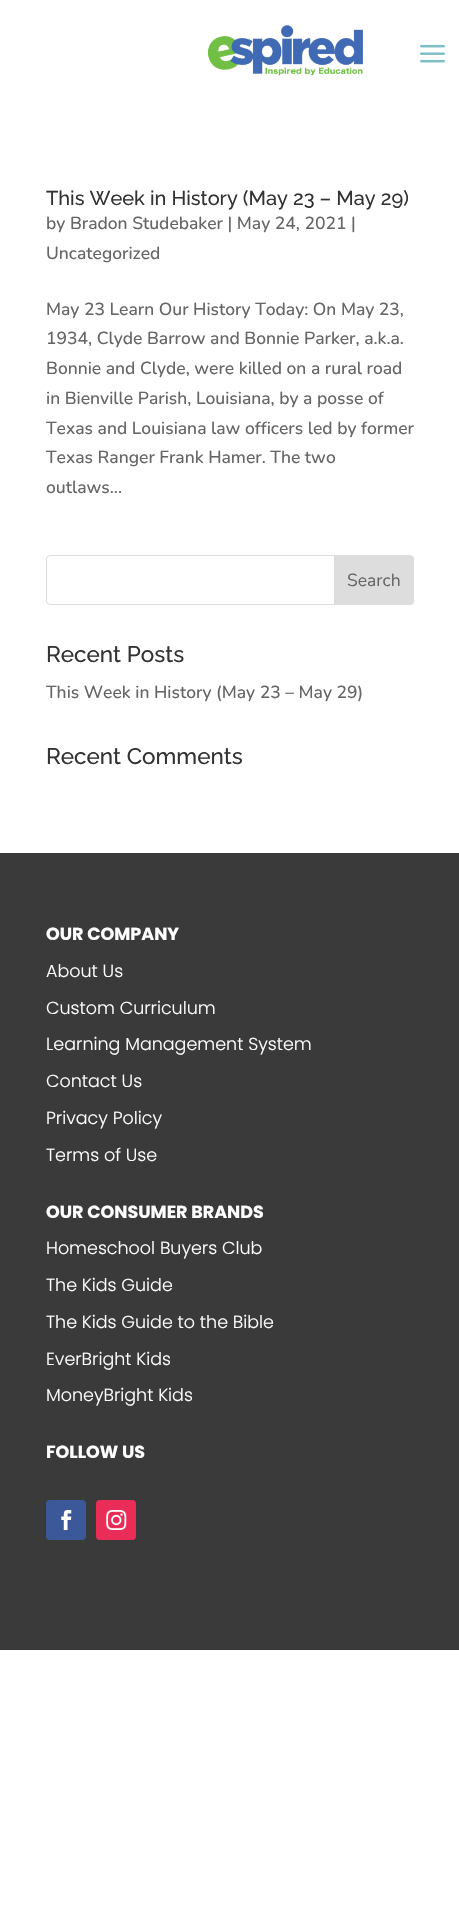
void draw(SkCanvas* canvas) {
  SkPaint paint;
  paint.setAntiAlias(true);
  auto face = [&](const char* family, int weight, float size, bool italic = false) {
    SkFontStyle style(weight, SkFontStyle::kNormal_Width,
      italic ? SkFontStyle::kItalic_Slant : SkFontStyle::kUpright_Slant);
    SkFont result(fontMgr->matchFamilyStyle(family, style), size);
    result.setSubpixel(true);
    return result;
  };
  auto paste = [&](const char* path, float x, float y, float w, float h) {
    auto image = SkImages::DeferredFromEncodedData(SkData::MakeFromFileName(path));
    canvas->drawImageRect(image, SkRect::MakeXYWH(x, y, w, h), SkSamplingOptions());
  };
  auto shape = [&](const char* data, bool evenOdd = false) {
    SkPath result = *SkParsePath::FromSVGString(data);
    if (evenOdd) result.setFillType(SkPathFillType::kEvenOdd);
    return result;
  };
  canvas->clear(0xffffffff);
  paste("img/1.png", 207, 25, 156, 51);
  paste("img/2.png", 420, 44, 25, 19);
  paint.setStroke(true);
  paint.setStrokeWidth(1);
  paint.setColor(0xffdddddd);
  canvas->drawRoundRect(SkRect::MakeXYWH(46.5f, 555.5f, 367, 49), 3.5f, 3.5f, paint);
  paint.setStroke(false);
  canvas->drawPath(shape("M334.5 555.5H410C412 555.5 413.5 557 413.5 559V601C413.5 603 412 604.5 410 604.5H334.5Z"), paint);
  paint.setStroke(true);
  canvas->drawPath(shape("M334.5 555.5H410C412 555.5 413.5 557 413.5 559V601C413.5 603 412 604.5 410 604.5H334.5Z"), paint);
  paint.setStroke(false);
  paint.setColor(0xff3a3a3a);
  canvas->drawRect(SkRect::MakeXYWH(0, 853, 459, 797), paint);
  paint.setColor(0xff3b5998);
  canvas->drawRoundRect(SkRect::MakeXYWH(46, 1500, 40, 40), 4, 4, paint);
  paste("img/3.png", 61, 1510, 11, 20);
  paint.setColor(0xffea2c59);
  canvas->drawRoundRect(SkRect::MakeXYWH(96, 1500, 40, 40), 4, 4, paint);
  paste("img/4.png", 106, 1510, 21, 20);
  auto f0 = face("Raleway", 100, 20);
  paint.setColor(0xff333333);
  canvas->drawString("This Week in History (May 23 – May 29)", 46, 205, f0, paint);
  auto f1 = face("Nunito", 200, 17.5f);
  paint.setColor(0xff666666);
  {
    const struct { const char* s; float x, y; } items[] = {
      {"by Bradon Studebaker | May 24, 2021 |", 46, 229},
      {"Uncategorized", 46, 259},
      {"May 23 Learn Our History Today: On May 23,", 46, 315},
      {"1934, Clyde Barrow and Bonnie Parker, a.k.a.", 46, 344},
      {"Bonnie and Clyde, were killed on a rural road", 46, 374},
      {"in Bienville Parish, Louisiana, by a posse of", 46, 404},
      {"Texas and Louisiana law officers led by former", 46, 434},
      {"Texas Ranger Frank Hamer. The two", 46, 463},
      {"outlaws...", 46, 493},
    };
    for (auto [s, x, y] : items) {
      canvas->drawString(s, x, y, f1, paint);
    }
  }
  auto f2 = face("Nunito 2", 200, 17.5f);
  canvas->drawString("Search", 347, 586, f2, paint);
  auto f3 = face("Raleway", 100, 22.5f);
  paint.setColor(0xff333333);
  canvas->drawString("Recent Posts", 46, 662, f3, paint);
  paint.setColor(0xff666666);
  canvas->drawString("This Week in History (May 23 – May 29)", 46, 698, f1, paint);
  paint.setColor(0xff333333);
  canvas->drawString("Recent Comments", 46, 764, f3, paint);
  auto f4 = face("Poppins", 700, 17.5f);
  paint.setColor(0xffffffff);
  canvas->drawString("OUR COMPANY", 46, 940, f4, paint);
  auto f5 = face("Poppins", 300, 17.5f);
  {
    const struct { const char* s; float x, y; } items[] = {
      {"About Us", 46, 977},
      {"Custom Curriculum", 46, 1014},
      {"Learning Management System", 46, 1050},
      {"Contact Us", 46, 1087},
      {"Privacy Policy", 46, 1124},
      {"Terms of Use", 46, 1161},
    };
    for (auto [s, x, y] : items) {
      canvas->drawString(s, x, y, f5, paint);
    }
  }
  canvas->drawString("OUR CONSUMER BRANDS", 46, 1218, f4, paint);
  {
    const struct { const char* s; float x, y; } items[] = {
      {"Homeschool Buyers Club", 46, 1254},
      {"The Kids Guide", 46, 1291},
      {"The Kids Guide to the Bible", 46, 1328},
      {"EverBright Kids", 46, 1365},
      {"MoneyBright Kids", 46, 1401},
    };
    for (auto [s, x, y] : items) {
      canvas->drawString(s, x, y, f5, paint);
    }
  }
  canvas->drawString("FOLLOW US", 46, 1458, f4, paint);
}
